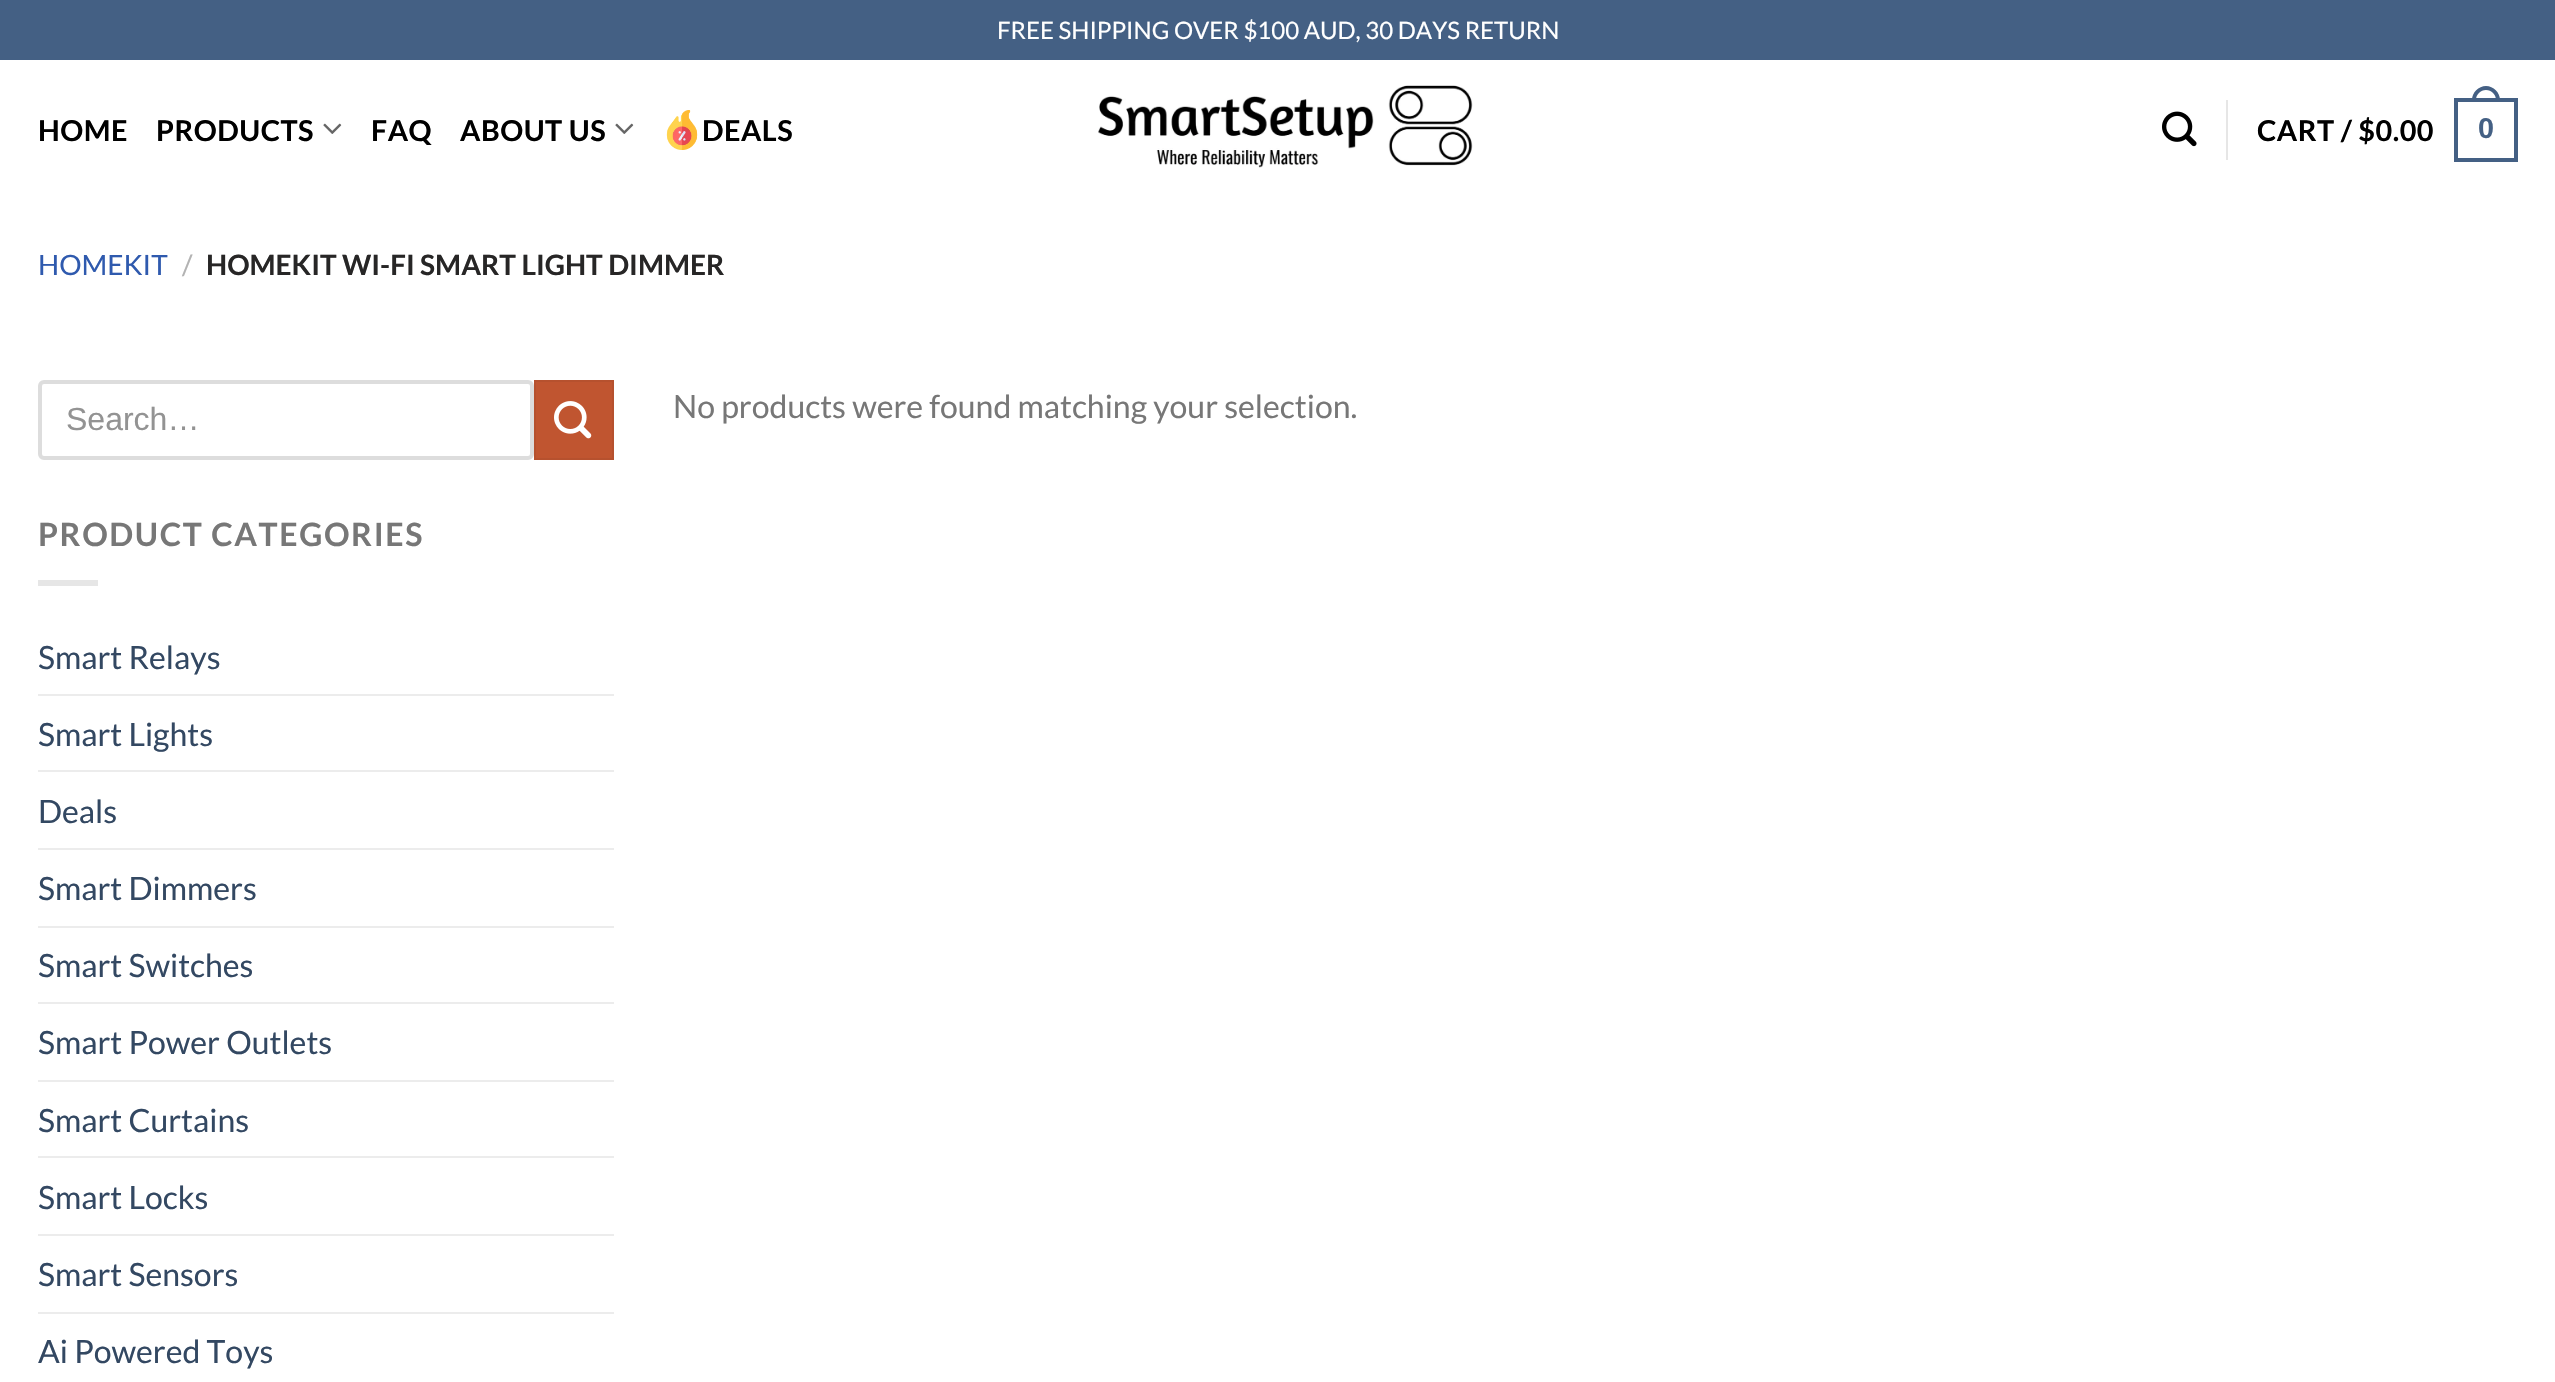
void draw(SkCanvas* canvas) {
  SkPaint paint;
  paint.setAntiAlias(true);
  auto face = [&](const char* family, int weight, float size, bool italic = false) {
    SkFontStyle style(weight, SkFontStyle::kNormal_Width,
      italic ? SkFontStyle::kItalic_Slant : SkFontStyle::kUpright_Slant);
    SkFont result(fontMgr->matchFamilyStyle(family, style), size);
    result.setSubpixel(true);
    return result;
  };
  auto writeSpaced = [&](const char* s, float x, float y, const SkFont& font, const SkPaint& ink, float letter, float word) {
    std::vector<SkGlyphID> glyphs(font.countText(s, strlen(s), SkTextEncoding::kUTF8));
    std::vector<float> xs(glyphs.size());
    font.textToGlyphs(s, strlen(s), SkTextEncoding::kUTF8, glyphs);
    font.getXPos(glyphs, xs, x);
    float extra = 0;
    for (size_t i = 0; i < glyphs.size(); i++) {
      xs[i] += extra;
      extra += letter + word * (glyphs[i] == font.unicharToGlyph(' '));
    }
    canvas->drawTextBlob(SkTextBlob::MakeFromPosHGlyphs(glyphs, xs, y, font), 0, 0, ink);
  };
  auto paste = [&](const char* path, float x, float y, float w, float h) {
    auto image = SkImages::DeferredFromEncodedData(SkData::MakeFromFileName(path));
    canvas->drawImageRect(image, SkRect::MakeXYWH(x, y, w, h), SkSamplingOptions());
  };
  auto shape = [&](const char* data, bool evenOdd = false) {
    SkPath result = *SkParsePath::FromSVGString(data);
    if (evenOdd) result.setFillType(SkPathFillType::kEvenOdd);
    return result;
  };
  canvas->clear(0xffffffff);
  paint.setColor(0xff446084);
  canvas->drawRect(SkRect::MakeXYWH(0, 0, 2555, 60), paint);
  paste("img/1.png", 323, 123, 19, 11);
  paste("img/1.png", 615, 123, 19, 11);
  paste("img/2.png", 666, 110, 32, 40);
  paste("img/3.png", 1098, 85, 375, 83);
  paste("img/4.png", 2162, 111, 35, 36);
  paint.setColor(0xffe6e6e6);
  canvas->drawRect(SkRect::MakeXYWH(2226, 100, 2, 60), paint);
  paint.setStroke(true);
  paint.setStrokeWidth(4);
  paint.setColor(0xff446084);
  canvas->drawRect(SkRect::MakeXYWH(2456, 100, 60, 60), paint);
  paint.setStroke(false);
  canvas->drawPath(shape("M2486 86C2493.5 86 2500 92.5 2500 100V102H2472V100C2472 92.5 2478.5 86 2486 86ZM2486 90C2491.5 90 2496 94.5 2496 100V102H2476V100C2476 94.5 2480.5 90 2486 90Z", true), paint);
  paint.setStroke(true);
  paint.setColor(0xffdddddd);
  canvas->drawRoundRect(SkRect::MakeXYWH(40, 382, 492, 76), 4, 4, paint);
  paint.setStroke(false);
  paint.setColor(0xffc05530);
  canvas->drawRect(SkRect::MakeXYWH(535, 381, 78, 78), paint);
  paint.setStroke(true);
  paint.setStrokeWidth(2);
  paint.setColor(0xffb6512e);
  canvas->drawRect(SkRect::MakeXYWH(535, 381, 78, 78), paint);
  paste("img/5.png", 554, 401, 38, 38);
  paint.setStroke(false);
  {
    const struct { float x, y, w, h; SkColor color; } items[] = {
      {38, 580, 60, 6, 0xffe6e6e6},
      {38, 694, 576, 2, 0xffececec},
      {38, 770, 576, 2, 0xffececec},
      {38, 848, 576, 2, 0xffececec},
      {38, 926, 576, 2, 0xffececec},
      {38, 1002, 576, 2, 0xffececec},
      {38, 1080, 576, 2, 0xffececec},
      {38, 1156, 576, 2, 0xffececec},
      {38, 1234, 576, 2, 0xffececec},
      {38, 1312, 576, 2, 0xffececec},
    };
    for (auto [x, y, w, h, color] : items) {
      paint.setColor(color);
      canvas->drawRect(SkRect::MakeXYWH(x, y, w, h), paint);
    }
  }
  auto f0 = face("Lato", 400, 24);
  paint.setColor(0xffffffff);
  canvas->drawString("FREE SHIPPING OVER $100 AUD, 30 DAYS RETURN", 997, 39, f0, paint);
  auto f1 = face("Lato", 700, 28.75f);
  paint.setColor(0xff000000);
  {
    const struct { const char* s; float x, y; } items[] = {
      {"HOME", 38, 141},
      {"PRODUCTS", 156, 141},
      {"FAQ", 371, 141},
      {"ABOUT US", 460, 141},
      {"DEALS", 702, 141},
      {"CART / $0.00", 2257, 141},
    };
    for (auto [s, x, y] : items) {
      writeSpaced(s, x, y, f1, paint, 0.5f, 0);
    }
  }
  auto f2 = face("Liberation Sans", 700, 28.75f);
  paint.setColor(0xff446084);
  writeSpaced("0", 2478, 138, f2, paint, 0.5f, 0);
  auto f3 = face("Lato", 400, 28);
  paint.setColor(0xff2f5aae);
  canvas->drawString("HOMEKIT", 38, 275, f3, paint);
  paint.setColor(0xffb3b3b3);
  canvas->drawString("/", 182, 275, f3, paint);
  auto f4 = face("Lato", 700, 28);
  paint.setColor(0xff272626);
  canvas->drawString("HOMEKIT WI-FI SMART LIGHT DIMMER", 206, 275, f4, paint);
  auto f5 = face("Liberation Sans", 400, 32);
  paint.setColor(0xff939393);
  canvas->drawString("Search…", 66, 430, f5, paint);
  auto f6 = face("Lato", 700, 32);
  paint.setColor(0xff777777);
  writeSpaced("PRODUCT CATEGORIES", 38, 546, f6, paint, 1.6f, 0);
  auto f7 = face("Lato", 400, 32);
  paint.setColor(0xff334862);
  {
    const struct { const char* s; float x, y; } items[] = {
      {"Smart Relays", 38, 669},
      {"Smart Lights", 38, 746},
      {"Deals", 38, 823},
      {"Smart Dimmers", 38, 900},
      {"Smart Switches", 38, 977},
      {"Smart Power Outlets", 38, 1054},
      {"Smart Curtains", 38, 1132},
      {"Smart Locks", 38, 1209},
      {"Smart Sensors", 38, 1286},
      {"Ai Powered Toys", 38, 1363},
    };
    for (auto [s, x, y] : items) {
      canvas->drawString(s, x, y, f7, paint);
    }
  }
  paint.setColor(0xff777777);
  canvas->drawString("No products were found matching your selection.", 673, 418, f7, paint);
}
